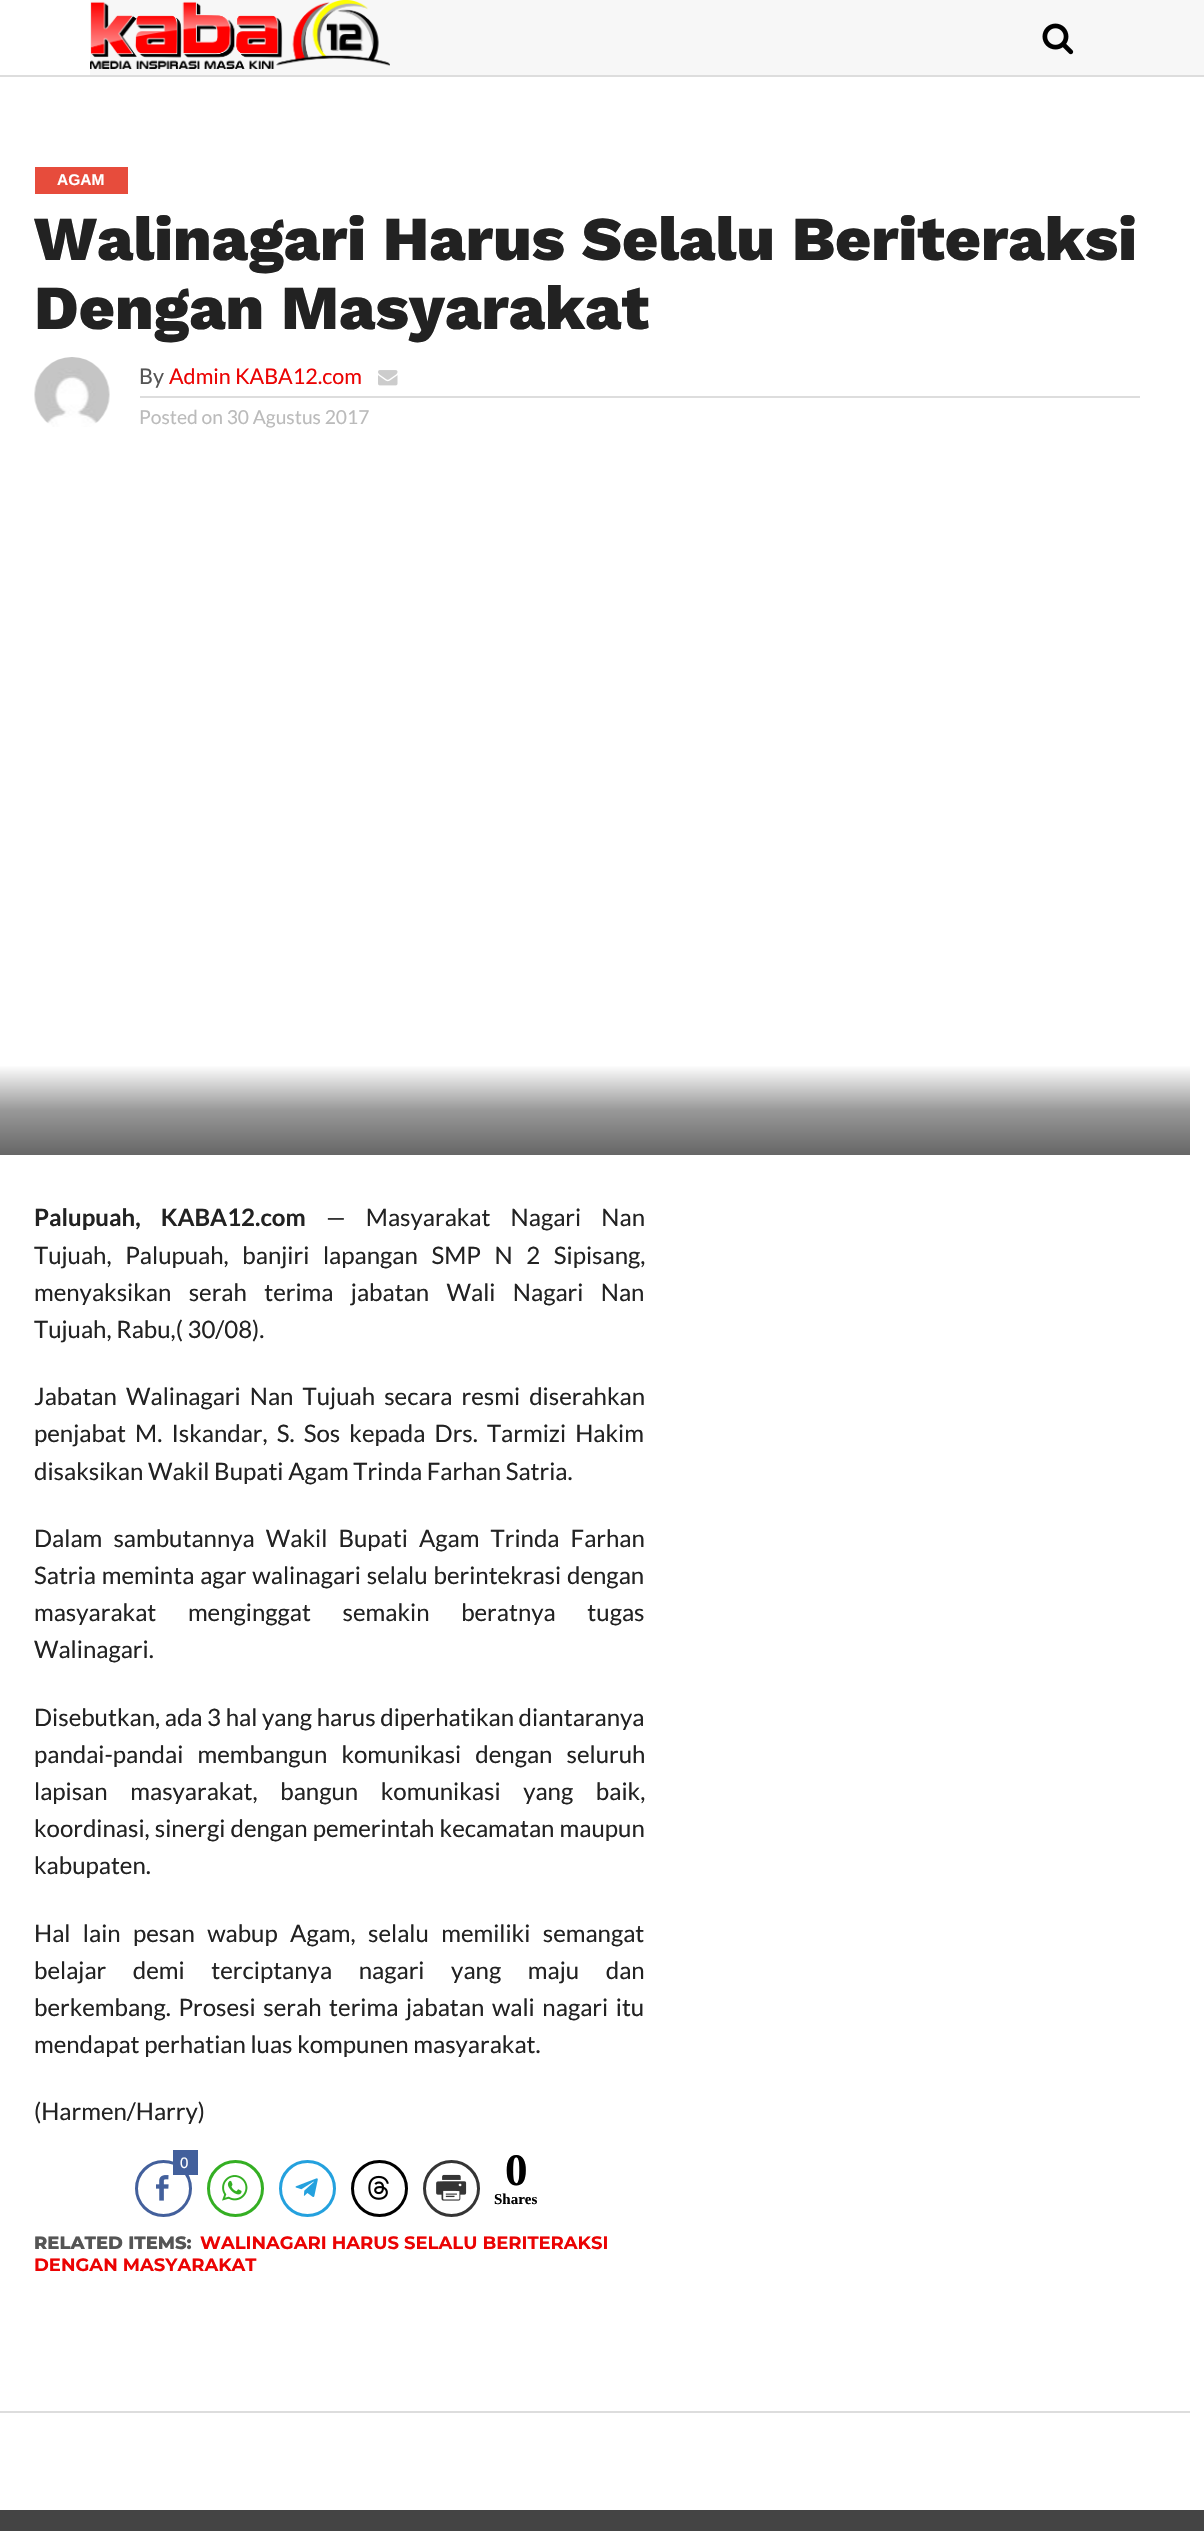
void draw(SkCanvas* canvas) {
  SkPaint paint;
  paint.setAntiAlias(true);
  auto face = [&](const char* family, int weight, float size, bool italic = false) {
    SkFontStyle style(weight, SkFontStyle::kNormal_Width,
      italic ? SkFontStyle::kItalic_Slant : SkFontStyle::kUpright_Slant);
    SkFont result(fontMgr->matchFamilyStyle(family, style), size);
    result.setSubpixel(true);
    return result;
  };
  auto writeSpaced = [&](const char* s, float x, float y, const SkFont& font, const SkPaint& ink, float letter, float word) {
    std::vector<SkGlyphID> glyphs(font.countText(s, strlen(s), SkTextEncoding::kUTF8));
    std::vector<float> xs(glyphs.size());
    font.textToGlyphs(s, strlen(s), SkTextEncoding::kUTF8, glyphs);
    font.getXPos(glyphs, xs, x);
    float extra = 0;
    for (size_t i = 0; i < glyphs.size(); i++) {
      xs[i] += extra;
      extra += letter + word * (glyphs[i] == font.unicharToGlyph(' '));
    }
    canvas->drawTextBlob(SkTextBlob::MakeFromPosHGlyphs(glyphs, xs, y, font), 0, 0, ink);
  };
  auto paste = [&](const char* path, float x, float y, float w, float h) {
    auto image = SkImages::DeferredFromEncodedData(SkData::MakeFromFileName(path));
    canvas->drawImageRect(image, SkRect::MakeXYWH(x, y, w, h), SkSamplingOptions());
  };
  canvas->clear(0xffffffff);
  paint.setColor(0xfff7f7f7);
  canvas->drawRect(SkRect::MakeXYWH(90, 0, 1114, 75), paint);
  paint.setColor(0xffdddddd);
  canvas->drawRect(SkRect::MakeXYWH(0, 75, 1204, 2), paint);
  paste("img/1.png", 90, 0, 300, 69);
  paste("img/2.png", 1042, 23, 32, 32);
  canvas->drawRect(SkRect::MakeXYWH(0, 2411, 1190, 2), paint);
  paint.setColor(0xffe74c3c);
  canvas->drawRect(SkRect::MakeXYWH(35, 167, 93, 27), paint);
  paste("img/3.png", 34, 357, 76, 70);
  paint.setColor(0xffdddddd);
  canvas->drawRect(SkRect::MakeXYWH(140, 396, 1000, 2), paint);
  paste("img/4.png", 378, 370, 20, 16);
  {
    const SkColor colors[] = {0xffffffff, 0xff999999, 0xff666666};
    const float stops[] = {0, 0.5f, 1};
    const SkPoint ends[] = {{587, 1065}, {587, 1155}};
    paint.setShader(SkGradientShader::MakeLinear(ends, colors, stops, 3, SkTileMode::kClamp));
    paint.setAlpha(255);
  }
  canvas->drawRect(SkRect::MakeXYWH(0, 1066, 1190, 89), paint);
  paint.setStroke(true);
  paint.setStrokeWidth(3);
  paint.setShader(nullptr);
  paint.setColor(0xff43609c);
  canvas->drawCircle(163.5f, 2188.5f, 27, paint);
  paint.setStroke(false);
  canvas->drawRect(SkRect::MakeXYWH(173, 2150, 25, 25), paint);
  paste("img/5.png", 156, 2175, 13, 26);
  paint.setStroke(true);
  paint.setColor(0xff34af23);
  canvas->drawCircle(235.5f, 2188.5f, 27, paint);
  paste("img/6.png", 222, 2175, 26, 26);
  paint.setColor(0xff24a1de);
  canvas->drawCircle(307.5f, 2188.5f, 27, paint);
  paste("img/7.png", 295, 2178, 23, 19);
  paint.setColor(0xff000000);
  canvas->drawCircle(379.5f, 2188.5f, 27, paint);
  paste("img/8.png", 368, 2175, 21, 25);
  paint.setColor(0xff353535);
  canvas->drawCircle(451.5f, 2188.5f, 27, paint);
  paste("img/9.png", 436, 2174, 31, 27);
  paint.setStroke(false);
  paint.setColor(0xff444444);
  canvas->drawRect(SkRect::MakeXYWH(0, 2510, 1204, 21), paint);
  auto f0 = face("Liberation Sans", 700, 15.5f);
  paint.setColor(0xffffffff);
  canvas->drawString("AGAM", 57, 185, f0, paint);
  auto f1 = face("Work Sans", 800, 62.4f);
  paint.setColor(0xff222222);
  canvas->drawString("Walinagari Harus Selalu Beriteraksi", 34, 260, f1, paint);
  canvas->drawString("Dengan Masyarakat", 34, 329, f1, paint);
  auto f2 = face("Lato", 400, 21.5f);
  paint.setColor(0xff555555);
  canvas->drawString("By", 139, 384, f2, paint);
  paint.setColor(0xffeb0303);
  canvas->drawString("Admin KABA12.com", 169, 384, f2, paint);
  auto f3 = face("Lato", 400, 19.25f);
  paint.setColor(0xffbbbbbb);
  canvas->drawString("Posted on 30 Agustus 2017", 139, 424, f3, paint);
  auto f4 = face("Lato", 700, 24);
  paint.setColor(0xff222222);
  writeSpaced("Palupuah, KABA12.com", 34, 1226, f4, paint, 0, 15.5f);
  auto f5 = face("Lato", 400, 24);
  writeSpaced("— Masyarakat Nagari Nan", 326, 1226, f5, paint, 0, 15.5f);
  writeSpaced("Tujuah, Palupuah, banjiri lapangan SMP N 2 Sipisang,", 34, 1264, f5, paint, 0, 9);
  writeSpaced("menyaksikan serah terima jabatan Wali Nagari Nan", 34, 1301, f5, paint, 0, 12.75f);
  canvas->drawString("Tujuah, Rabu,( 30/08).", 34, 1338, f5, paint);
  writeSpaced("Jabatan Walinagari Nan Tujuah secara resmi diserahkan", 34, 1405, f5, paint, 0, 4.5f);
  writeSpaced("penjabat M. Iskandar, S. Sos kepada Drs. Tarmizi Hakim", 34, 1442, f5, paint, 0, 4.5f);
  canvas->drawString("disaksikan Wakil Bupati Agam Trinda Farhan Satria.", 34, 1480, f5, paint);
  writeSpaced("Dalam sambutannya Wakil Bupati Agam Trinda Farhan", 34, 1547, f5, paint, 0, 6.5f);
  writeSpaced("Satria meminta agar walinagari selalu berintekrasi dengan", 34, 1584, f5, paint, 0, 1.25f);
  writeSpaced("masyarakat menginggat semakin beratnya tugas", 34, 1621, f5, paint, 0, 27);
  canvas->drawString("Walinagari.", 34, 1658, f5, paint);
  canvas->drawString("Disebutkan, ada 3 hal yang harus diperhatikan diantaranya", 34, 1726, f5, paint);
  writeSpaced("pandai-pandai membangun komunikasi dengan seluruh", 34, 1763, f5, paint, 0, 9.5f);
  writeSpaced("lapisan masyarakat, bangun komunikasi yang baik,", 34, 1800, f5, paint, 0, 18);
  writeSpaced("koordinasi, sinergi dengan pemerintah kecamatan maupun", 34, 1837, f5, paint, 0, 0.5f);
  canvas->drawString("kabupaten.", 34, 1874, f5, paint);
  writeSpaced("Hal lain pesan wabup Agam, selalu memiliki semangat", 34, 1942, f5, paint, 0, 7.75f);
  writeSpaced("belajar demi terciptanya nagari yang maju dan", 34, 1979, f5, paint, 0, 22);
  writeSpaced("berkembang. Prosesi serah terima jabatan wali nagari itu", 34, 2016, f5, paint, 0, 3);
  canvas->drawString("mendapat perhatian luas kompunen masyarakat.", 34, 2053, f5, paint);
  canvas->drawString("(Harmen/Harry)", 34, 2120, f5, paint);
  auto f6 = face("Liberation Sans", 400, 15);
  paint.setColor(0xffffffff);
  canvas->drawString("0", 180, 2168, f6, paint);
  auto f7 = face("Liberation Serif", 700, 45);
  paint.setColor(0xff000000);
  canvas->drawString("0", 505, 2185, f7, paint);
  auto f8 = face("Liberation Serif", 700, 15);
  canvas->drawString("Shares", 494, 2204, f8, paint);
  auto f9 = face("Montserrat", 800, 18);
  paint.setColor(0xff555555);
  canvas->drawString("RELATED ITEMS:", 34, 2249, f9, paint);
  auto f10 = face("Montserrat", 700, 18);
  paint.setColor(0xffeb0303);
  canvas->drawString("WALINAGARI HARUS SELALU BERITERAKSI", 200, 2249, f10, paint);
  canvas->drawString("DENGAN MASYARAKAT", 34, 2271, f10, paint);
}
